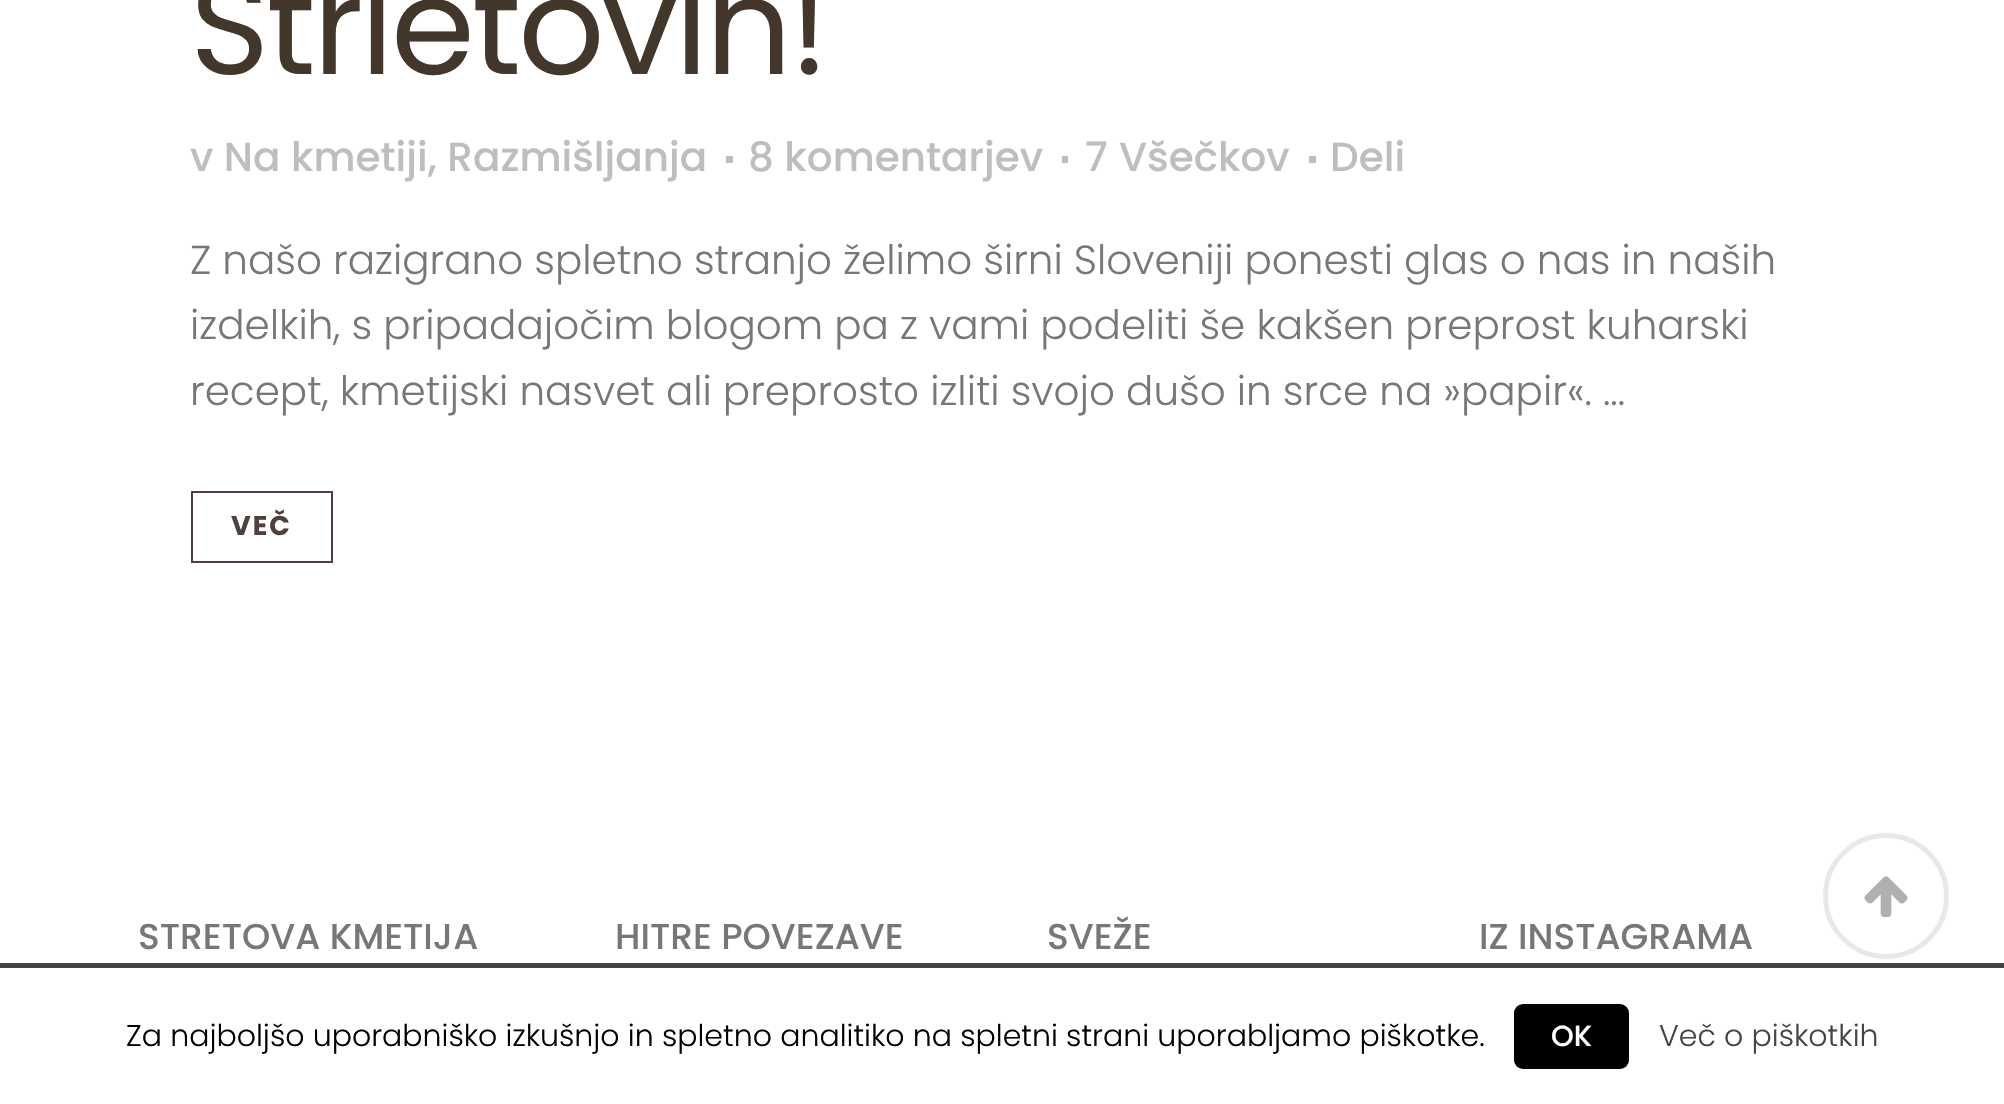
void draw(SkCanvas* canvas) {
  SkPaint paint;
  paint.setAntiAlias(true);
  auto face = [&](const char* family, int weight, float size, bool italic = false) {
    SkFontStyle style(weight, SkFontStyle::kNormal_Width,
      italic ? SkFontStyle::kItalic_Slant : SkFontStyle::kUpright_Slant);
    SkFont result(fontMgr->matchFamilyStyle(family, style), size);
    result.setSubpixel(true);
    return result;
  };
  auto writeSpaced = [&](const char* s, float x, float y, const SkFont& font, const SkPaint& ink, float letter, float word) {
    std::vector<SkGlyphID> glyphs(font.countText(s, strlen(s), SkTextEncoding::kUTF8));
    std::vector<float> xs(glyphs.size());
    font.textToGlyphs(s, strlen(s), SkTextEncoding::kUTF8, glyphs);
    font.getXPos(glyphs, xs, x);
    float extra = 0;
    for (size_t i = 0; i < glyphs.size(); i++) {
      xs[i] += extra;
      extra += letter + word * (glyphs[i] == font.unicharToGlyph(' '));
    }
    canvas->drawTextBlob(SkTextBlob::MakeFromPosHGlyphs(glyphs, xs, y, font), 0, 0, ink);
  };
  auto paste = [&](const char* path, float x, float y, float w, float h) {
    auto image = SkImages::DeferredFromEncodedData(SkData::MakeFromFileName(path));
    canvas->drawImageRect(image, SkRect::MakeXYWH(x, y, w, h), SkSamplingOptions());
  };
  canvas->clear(0xffffffff);
  {
    const struct { float x, y, w, h; SkColor color; } items[] = {
      {726, 156, 7, 7, 0xffbebebe},
      {1062, 156, 6, 7, 0xffbebebe},
      {1309, 156, 7, 7, 0xffbebebe},
    };
    for (auto [x, y, w, h, color] : items) {
      paint.setColor(color);
      canvas->drawRect(SkRect::MakeXYWH(x, y, w, h), paint);
    }
  }
  paint.setStroke(true);
  paint.setStrokeWidth(2);
  paint.setColor(0xff4f403d);
  canvas->drawRect(SkRect::MakeXYWH(192, 492, 140, 70), paint);
  paint.setStrokeWidth(5);
  paint.setColor(0xffe8e8e8);
  canvas->drawCircle(1886, 896, 60.5f, paint);
  paste("img/1.png", 1864, 876, 44, 42);
  paint.setStroke(false);
  paint.setColor(0xff444444);
  canvas->drawRect(SkRect::MakeXYWH(0, 963, 2004, 5), paint);
  paint.setColor(0xff000000);
  canvas->drawRoundRect(SkRect::MakeXYWH(1514, 1004, 115, 65), 9, 9, paint);
  auto f0 = face("Poppins", 400, 135);
  paint.setColor(0xff43362b);
  writeSpaced("Strletovih!", 190, 74, f0, paint, -2.75f, 0);
  auto f1 = face("Poppins", 500, 40.5f);
  paint.setColor(0xffbebebe);
  {
    const struct { const char* s; float x, y; } items[] = {
      {"v Na kmetiji, Razmišljanja", 190, 171},
      {"8 komentarjev", 748, 171},
      {"7", 1085, 171},
      {"Všečkov", 1119, 171},
      {"Deli", 1330, 171},
    };
    for (auto [s, x, y] : items) {
      canvas->drawString(s, x, y, f1, paint);
    }
  }
  auto f2 = face("Poppins", 300, 40.5f);
  paint.setColor(0xff777777);
  {
    const struct { const char* s; float x, y; } items[] = {
      {"Z našo razigrano spletno stranjo želimo širni Sloveniji ponesti glas o nas in naših", 190, 274},
      {"izdelkih, s pripadajočim blogom pa z vami podeliti še kakšen preprost kuharski", 190, 339},
      {"recept, kmetijski nasvet ali preprosto izliti svojo dušo in srce na »papir«. ...", 190, 405},
    };
    for (auto [s, x, y] : items) {
      canvas->drawString(s, x, y, f2, paint);
    }
  }
  auto f3 = face("Poppins", 700, 27);
  paint.setColor(0xff4f403d);
  writeSpaced("VEČ", 231, 535, f3, paint, 2, 0);
  auto f4 = face("Poppins", 500, 36);
  paint.setColor(0xff777777);
  {
    const struct { const char* s; float x, y; } items[] = {
      {"STRETOVA KMETIJA", 138, 949},
      {"HITRE POVEZAVE", 615, 949},
      {"SVEŽE", 1047, 949},
      {"IZ INSTAGRAMA", 1479, 949},
    };
    for (auto [s, x, y] : items) {
      canvas->drawString(s, x, y, f4, paint);
    }
  }
  auto f5 = face("Poppins", 300, 30);
  paint.setColor(0xff000000);
  canvas->drawString("Za najboljšo uporabniško izkušnjo in spletno analitiko na spletni strani uporabljamo piškotke.", 126, 1046, f5, paint);
  auto f6 = face("Poppins", 500, 29);
  paint.setColor(0xffffffff);
  canvas->drawString("OK", 1551, 1046, f6, paint);
  paint.setColor(0xff444444);
  canvas->drawString("Več o piškotkih", 1659, 1046, f5, paint);
}
